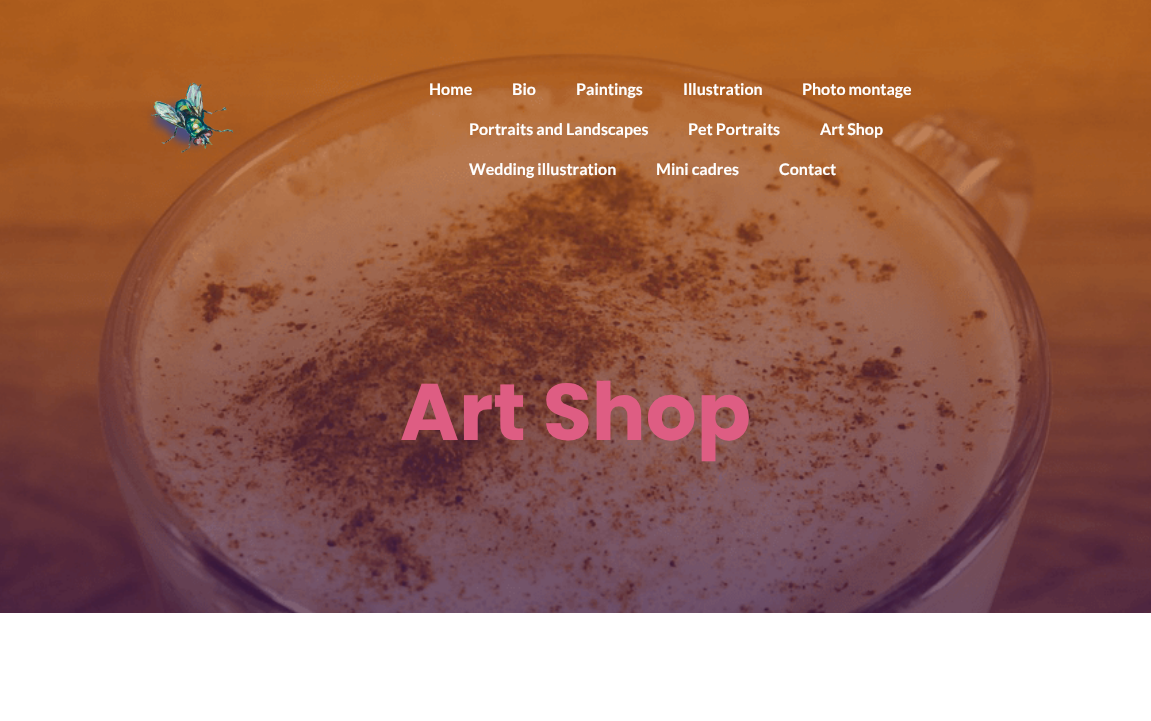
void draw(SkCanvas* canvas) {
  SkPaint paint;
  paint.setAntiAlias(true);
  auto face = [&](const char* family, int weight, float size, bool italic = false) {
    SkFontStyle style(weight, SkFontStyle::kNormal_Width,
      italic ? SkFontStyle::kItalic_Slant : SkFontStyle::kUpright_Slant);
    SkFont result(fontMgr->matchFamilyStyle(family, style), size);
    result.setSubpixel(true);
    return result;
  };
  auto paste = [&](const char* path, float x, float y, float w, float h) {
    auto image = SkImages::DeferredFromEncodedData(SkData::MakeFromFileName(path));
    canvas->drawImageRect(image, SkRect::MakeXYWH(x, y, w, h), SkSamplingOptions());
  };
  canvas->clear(0xffffffff);
  paste("img/1.png", 0, 0, 1151, 613);
  paste("img/2.png", 147, 82, 87, 71);
  auto f0 = face("Lato", 700, 16);
  paint.setColor(0xffffffff);
  {
    const struct { const char* s; float x, y; } items[] = {
      {"Home", 429, 95},
      {"Bio", 512, 95},
      {"Paintings", 576, 95},
      {"Illustration", 683, 95},
      {"Photo montage", 802, 95},
      {"Portraits and Landscapes", 469, 135},
      {"Pet Portraits", 688, 135},
      {"Art Shop", 820, 135},
      {"Wedding illustration", 469, 175},
      {"Mini cadres", 656, 175},
      {"Contact", 779, 175},
    };
    for (auto [s, x, y] : items) {
      canvas->drawString(s, x, y, f0, paint);
    }
  }
  auto f1 = face("Poppins", 700, 80);
  paint.setColor(0xffde5d83);
  canvas->drawString("Art Shop", 400, 440, f1, paint);
}
